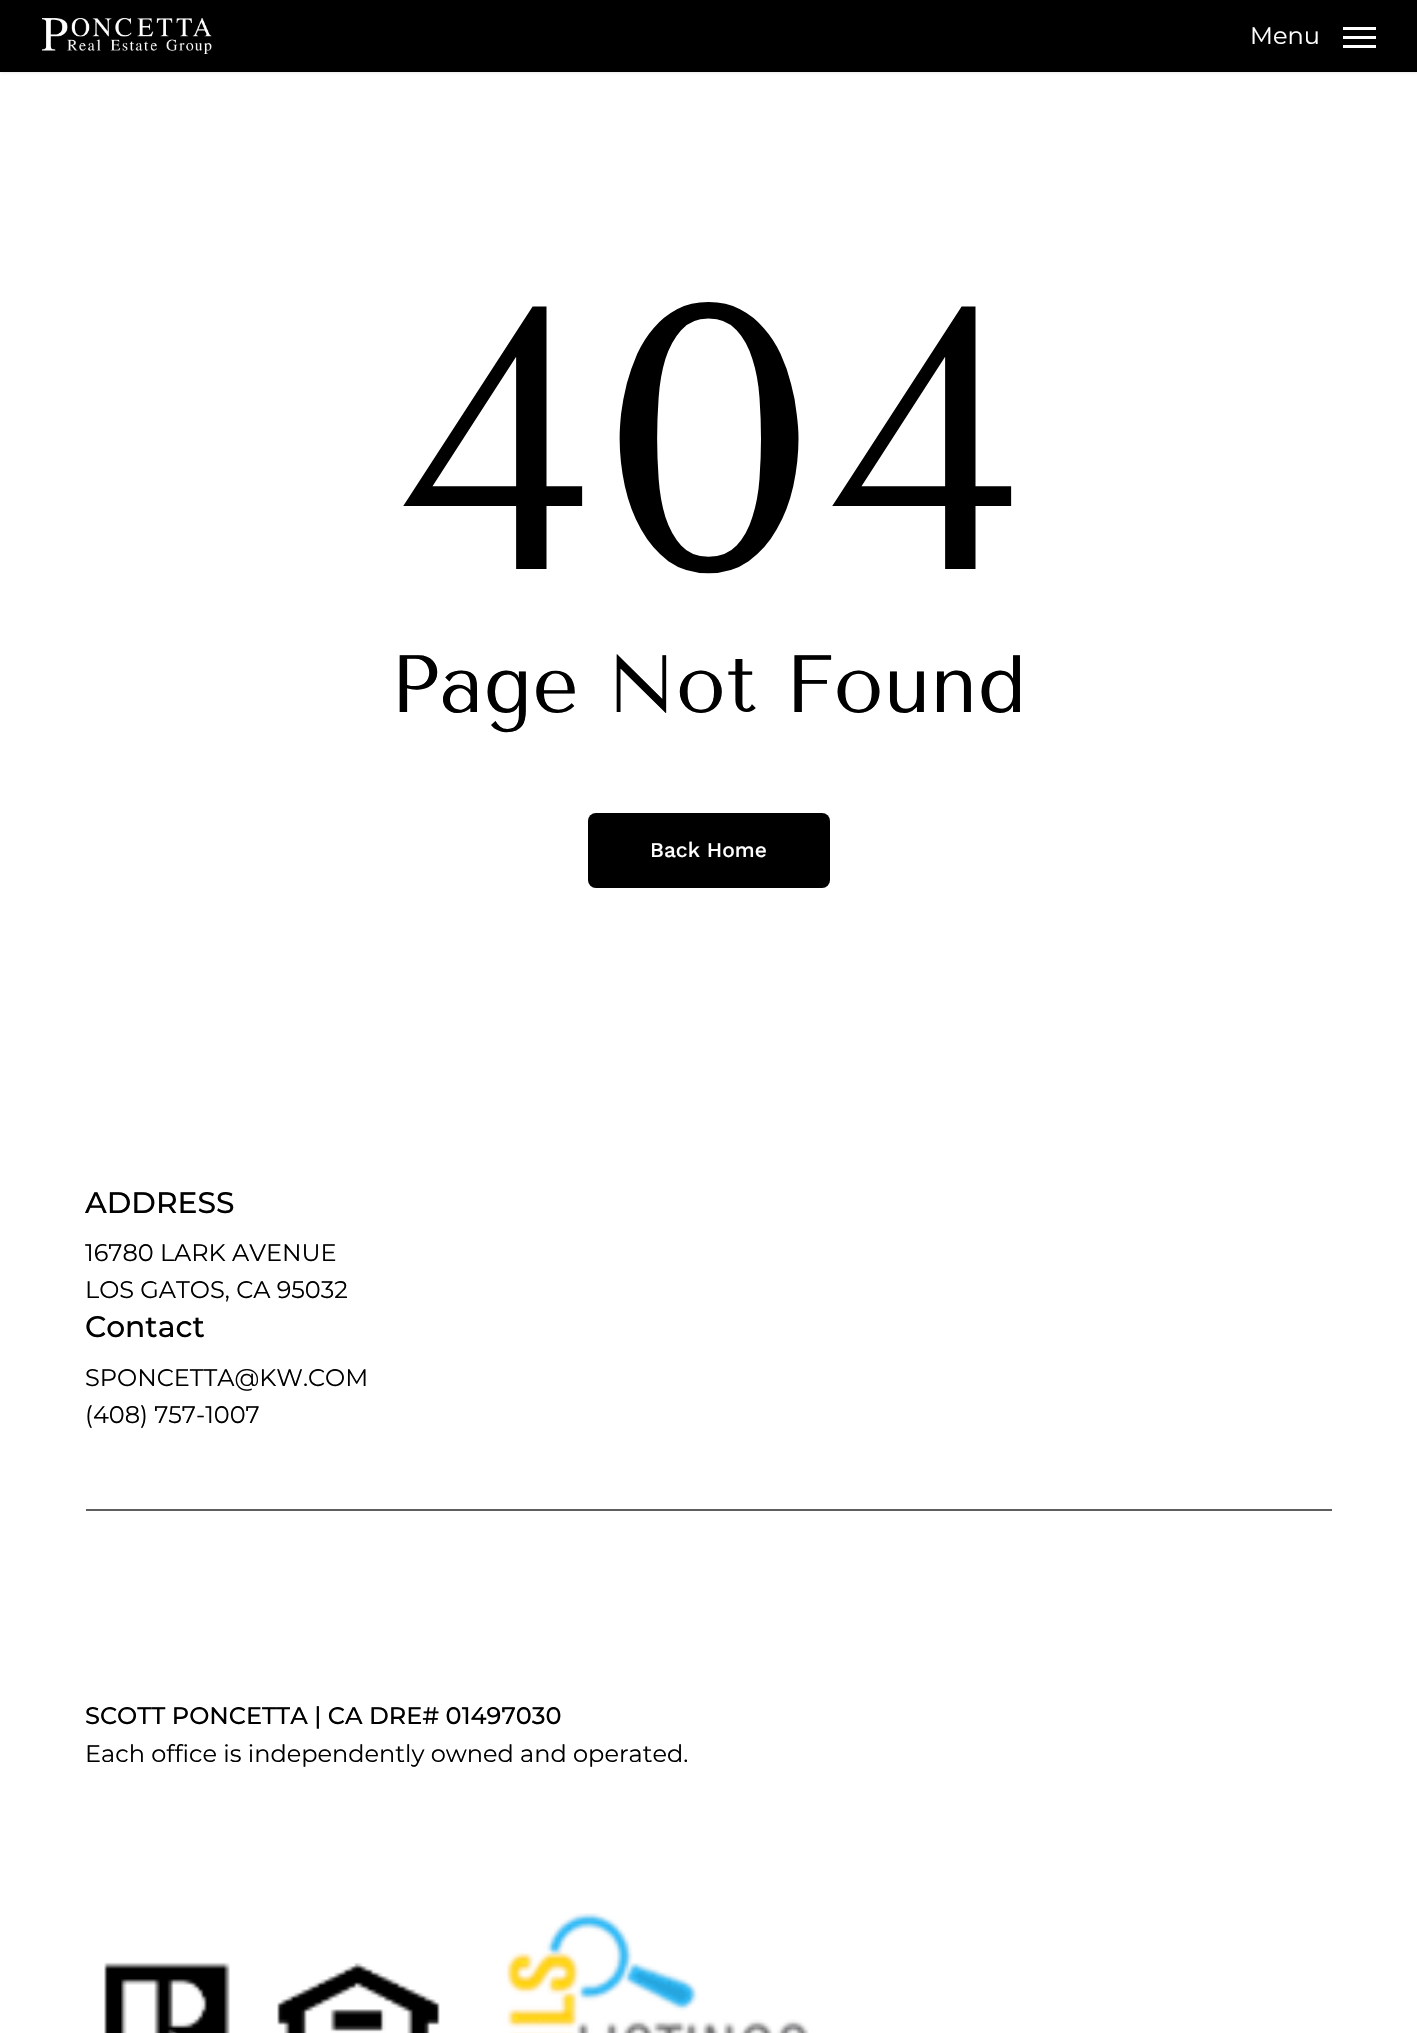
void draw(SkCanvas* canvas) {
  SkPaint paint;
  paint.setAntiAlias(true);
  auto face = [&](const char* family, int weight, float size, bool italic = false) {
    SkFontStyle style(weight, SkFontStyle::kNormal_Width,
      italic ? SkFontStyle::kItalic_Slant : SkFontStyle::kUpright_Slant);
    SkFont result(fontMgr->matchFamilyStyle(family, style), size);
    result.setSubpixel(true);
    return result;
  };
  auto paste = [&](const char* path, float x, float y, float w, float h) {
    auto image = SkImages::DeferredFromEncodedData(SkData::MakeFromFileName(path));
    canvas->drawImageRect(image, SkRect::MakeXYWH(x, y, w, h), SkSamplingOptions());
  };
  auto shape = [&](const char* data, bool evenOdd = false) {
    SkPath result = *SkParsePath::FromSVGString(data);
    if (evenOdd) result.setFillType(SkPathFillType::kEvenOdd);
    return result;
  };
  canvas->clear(0xffffffff);
  paint.setColor(0x24000000);
  paint.setMaskFilter(SkMaskFilter::MakeBlur(kNormal_SkBlurStyle, 1.5f));
  canvas->drawRect(SkRect::MakeXYWH(0, 0, 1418, 72), paint);
  paint.setMaskFilter(nullptr);
  paint.setColor(0xff000000);
  canvas->drawRect(SkRect::MakeXYWH(0, 0, 1417, 72), paint);
  paste("img/1.png", 42, 18, 170, 36);
  {
    const struct { float x, y, w, h; SkColor color; } items[] = {
      {1343, 27, 33, 3, 0xffffffff},
      {1343, 45, 33, 3, 0xffffffff},
      {1343, 36, 33, 3, 0xffffffff},
    };
    for (auto [x, y, w, h, color] : items) {
      paint.setColor(color);
      canvas->drawRect(SkRect::MakeXYWH(x, y, w, h), paint);
    }
  }
  paint.setColor(0xff000000);
  canvas->drawRoundRect(SkRect::MakeXYWH(588, 813, 242, 75), 8, 8, paint);
  paint.setColor(0x1a000000);
  canvas->drawPath(shape("M588 876V880C588 884 592 888 596 888H822C826 888 830 884 830 880V876C830 880 826 884 822 884H596C591 884 588 880 588 876Z"), paint);
  paint.setColor(0xff5e5e5e);
  canvas->drawRect(SkRect::MakeXYWH(86, 1509, 1246, 2), paint);
  paste("img/2.png", 104, 1913, 705, 120);
  auto f0 = face("Montserrat", 400, 24);
  paint.setColor(0xffffffff);
  canvas->drawString("Menu", 1250, 44, f0, paint);
  auto f1 = face("Tenor Sans", 400, 375);
  paint.setColor(0xff000000);
  canvas->drawString("404", 392, 569, f1, paint);
  auto f2 = face("Tenor Sans", 400, 81);
  canvas->drawString("Page Not Found", 390, 712, f2, paint);
  auto f3 = face("Work Sans", 500, 21);
  paint.setColor(0xffffffff);
  canvas->drawString("Back Home", 650, 857, f3, paint);
  auto f4 = face("Montserrat", 500, 29.75f);
  paint.setColor(0xff000000);
  canvas->drawString("ADDRESS", 85, 1213, f4, paint);
  canvas->drawString("16780 LARK AVENUE", 85, 1261, f0, paint);
  canvas->drawString("LOS GATOS, CA 95032", 85, 1298, f0, paint);
  canvas->drawString("Contact", 85, 1337, f4, paint);
  canvas->drawString("SPONCETTA@KW.COM", 85, 1386, f0, paint);
  canvas->drawString("(408) 757-1007", 85, 1423, f0, paint);
  auto f5 = face("Montserrat", 500, 24);
  canvas->drawString("SCOTT PONCETTA | CA DRE# 01497030", 85, 1724, f5, paint);
  canvas->drawString("Each office is independently owned and operated.", 85, 1762, f0, paint);
}
